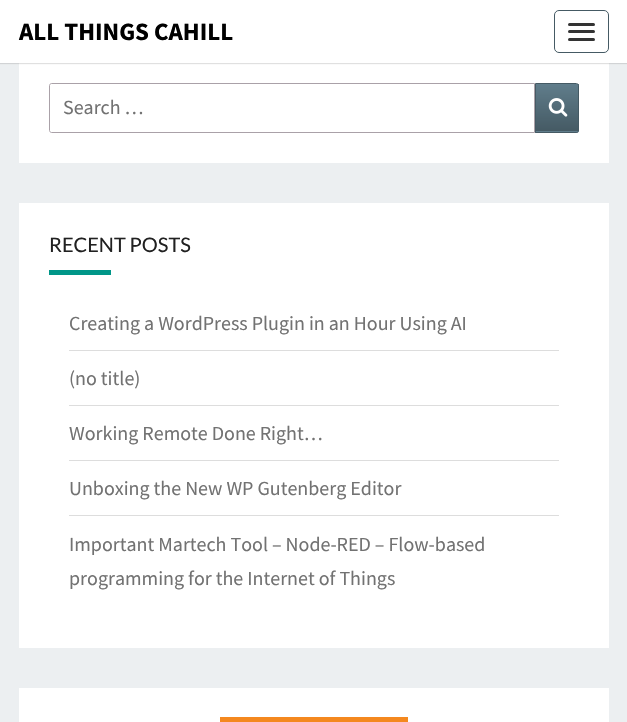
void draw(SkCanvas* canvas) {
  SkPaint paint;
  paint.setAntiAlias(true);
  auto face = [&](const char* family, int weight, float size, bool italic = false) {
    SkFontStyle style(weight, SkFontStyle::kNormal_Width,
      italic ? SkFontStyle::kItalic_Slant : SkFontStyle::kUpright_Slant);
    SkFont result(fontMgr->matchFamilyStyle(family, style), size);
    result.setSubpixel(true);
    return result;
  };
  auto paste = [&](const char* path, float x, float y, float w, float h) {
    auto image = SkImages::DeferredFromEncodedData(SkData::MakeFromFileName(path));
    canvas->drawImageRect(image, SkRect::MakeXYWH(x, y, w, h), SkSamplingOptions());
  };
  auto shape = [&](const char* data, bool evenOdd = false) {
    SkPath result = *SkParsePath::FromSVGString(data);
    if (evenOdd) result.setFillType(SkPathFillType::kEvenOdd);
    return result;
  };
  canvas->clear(0xffeceff1);
  paint.setColor(0xffffffff);
  canvas->drawRect(SkRect::MakeXYWH(19, 63, 590, 100), paint);
  paint.setColor(0x33646464);
  paint.setMaskFilter(SkMaskFilter::MakeBlur(kNormal_SkBlurStyle, 0.5f));
  canvas->drawRect(SkRect::MakeXYWH(0, 1, 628, 63), paint);
  paint.setMaskFilter(nullptr);
  paint.setColor(0xffffffff);
  canvas->drawRect(SkRect::MakeXYWH(0, 0, 627, 63), paint);
  paint.setStroke(true);
  paint.setStrokeWidth(1);
  paint.setColor(0xff455a64);
  canvas->drawRoundRect(SkRect::MakeXYWH(554.5f, 10.5f, 54, 42), 4.5f, 4.5f, paint);
  paint.setStroke(false);
  paint.setColor(0xff333333);
  canvas->drawRoundRect(SkRect::MakeXYWH(568, 23, 27, 3), 1.5f, 1.5f, paint);
  canvas->drawRoundRect(SkRect::MakeXYWH(568, 30, 27, 3), 1.5f, 1.5f, paint);
  canvas->drawRoundRect(SkRect::MakeXYWH(568, 38, 27, 3), 1.5f, 1.5f, paint);
  paint.setStroke(true);
  paint.setColor(0xffaaa1a8);
  canvas->drawPath(shape("M51.5 83.5H534.5V132.5H51.5C50.5 132.5 49.5 131.5 49.5 130.5V85.5C49.5 84.5 50.5 83.5 51.5 83.5Z"), paint);
  paint.setStroke(false);
  {
    const SkColor colors[] = {0xff607d8b, 0xff455a64};
    const float stops[] = {0, 1};
    const SkPoint ends[] = {{557, 84}, {557, 131}};
    paint.setShader(SkGradientShader::MakeLinear(ends, colors, stops, 2, SkTileMode::kClamp));
    paint.setAlpha(255);
  }
  canvas->drawRect(SkRect::MakeXYWH(536, 84, 43, 47), paint);
  canvas->save();
  canvas->clipPath(shape("M535 83H576.5C578 83 579 84 579 85.5V130.5C579 132 578 133 576.5 133H535Z"), true);
  {
    const SkColor colors[] = {0xff607d8b, 0xff455a64};
    const float stops[] = {0, 1};
    const SkPoint ends[] = {{557, 131}, {557, 179}};
    paint.setShader(SkGradientShader::MakeLinear(ends, colors, stops, 2, SkTileMode::kClamp));
    paint.setAlpha(255);
  }
  canvas->drawRect(SkRect::MakeXYWH(535, 131, 44, 2), paint);
  canvas->restore();
  paint.setStroke(true);
  paint.setShader(nullptr);
  paint.setColor(0xff455a64);
  canvas->drawPath(shape("M535.5 83.5H576.5C577.5 83.5 578.5 84.5 578.5 85.5V130.5C578.5 131.5 577.5 132.5 576.5 132.5H535.5Z"), paint);
  paste("img/1.png", 548, 98, 20, 19);
  paint.setStroke(false);
  {
    const struct { float x, y, w, h; SkColor color; } items[] = {
      {19, 203, 590, 445, 0xffffffff},
      {49, 270, 62, 5, 0xff009688},
      {69, 350, 490, 1, 0xffdddddd},
      {69, 405, 490, 1, 0xffdddddd},
      {69, 460, 490, 1, 0xffdddddd},
      {69, 515, 490, 1, 0xffdddddd},
      {19, 688, 590, 34, 0xffffffff},
      {220, 717, 188, 5, 0xfff4881f},
    };
    for (auto [x, y, w, h, color] : items) {
      paint.setColor(color);
      canvas->drawRect(SkRect::MakeXYWH(x, y, w, h), paint);
    }
  }
  auto f0 = face("Source Sans Pro", 700, 25);
  paint.setColor(0xff000000);
  canvas->drawString("ALL THINGS CAHILL", 19, 40, f0, paint);
  auto f1 = face("Source Sans Pro", 400, 20);
  paint.setColor(0xff727272);
  canvas->drawString("Search …", 63, 114, f1, paint);
  auto f2 = face("Lato", 400, 20);
  paint.setColor(0xff212121);
  canvas->drawString("RECENT POSTS", 49, 252, f2, paint);
  paint.setColor(0xff727272);
  {
    const struct { const char* s; float x, y; } items[] = {
      {"Creating a WordPress Plugin in an Hour Using AI", 69, 330},
      {"(no title)", 69, 385},
      {"Working Remote Done Right…", 69, 440},
      {"Unboxing the New WP Gutenberg Editor", 69, 495},
      {"Important Martech Tool – Node-RED – Flow-based", 69, 551},
      {"programming for the Internet of Things", 69, 585},
    };
    for (auto [s, x, y] : items) {
      canvas->drawString(s, x, y, f1, paint);
    }
  }
}
